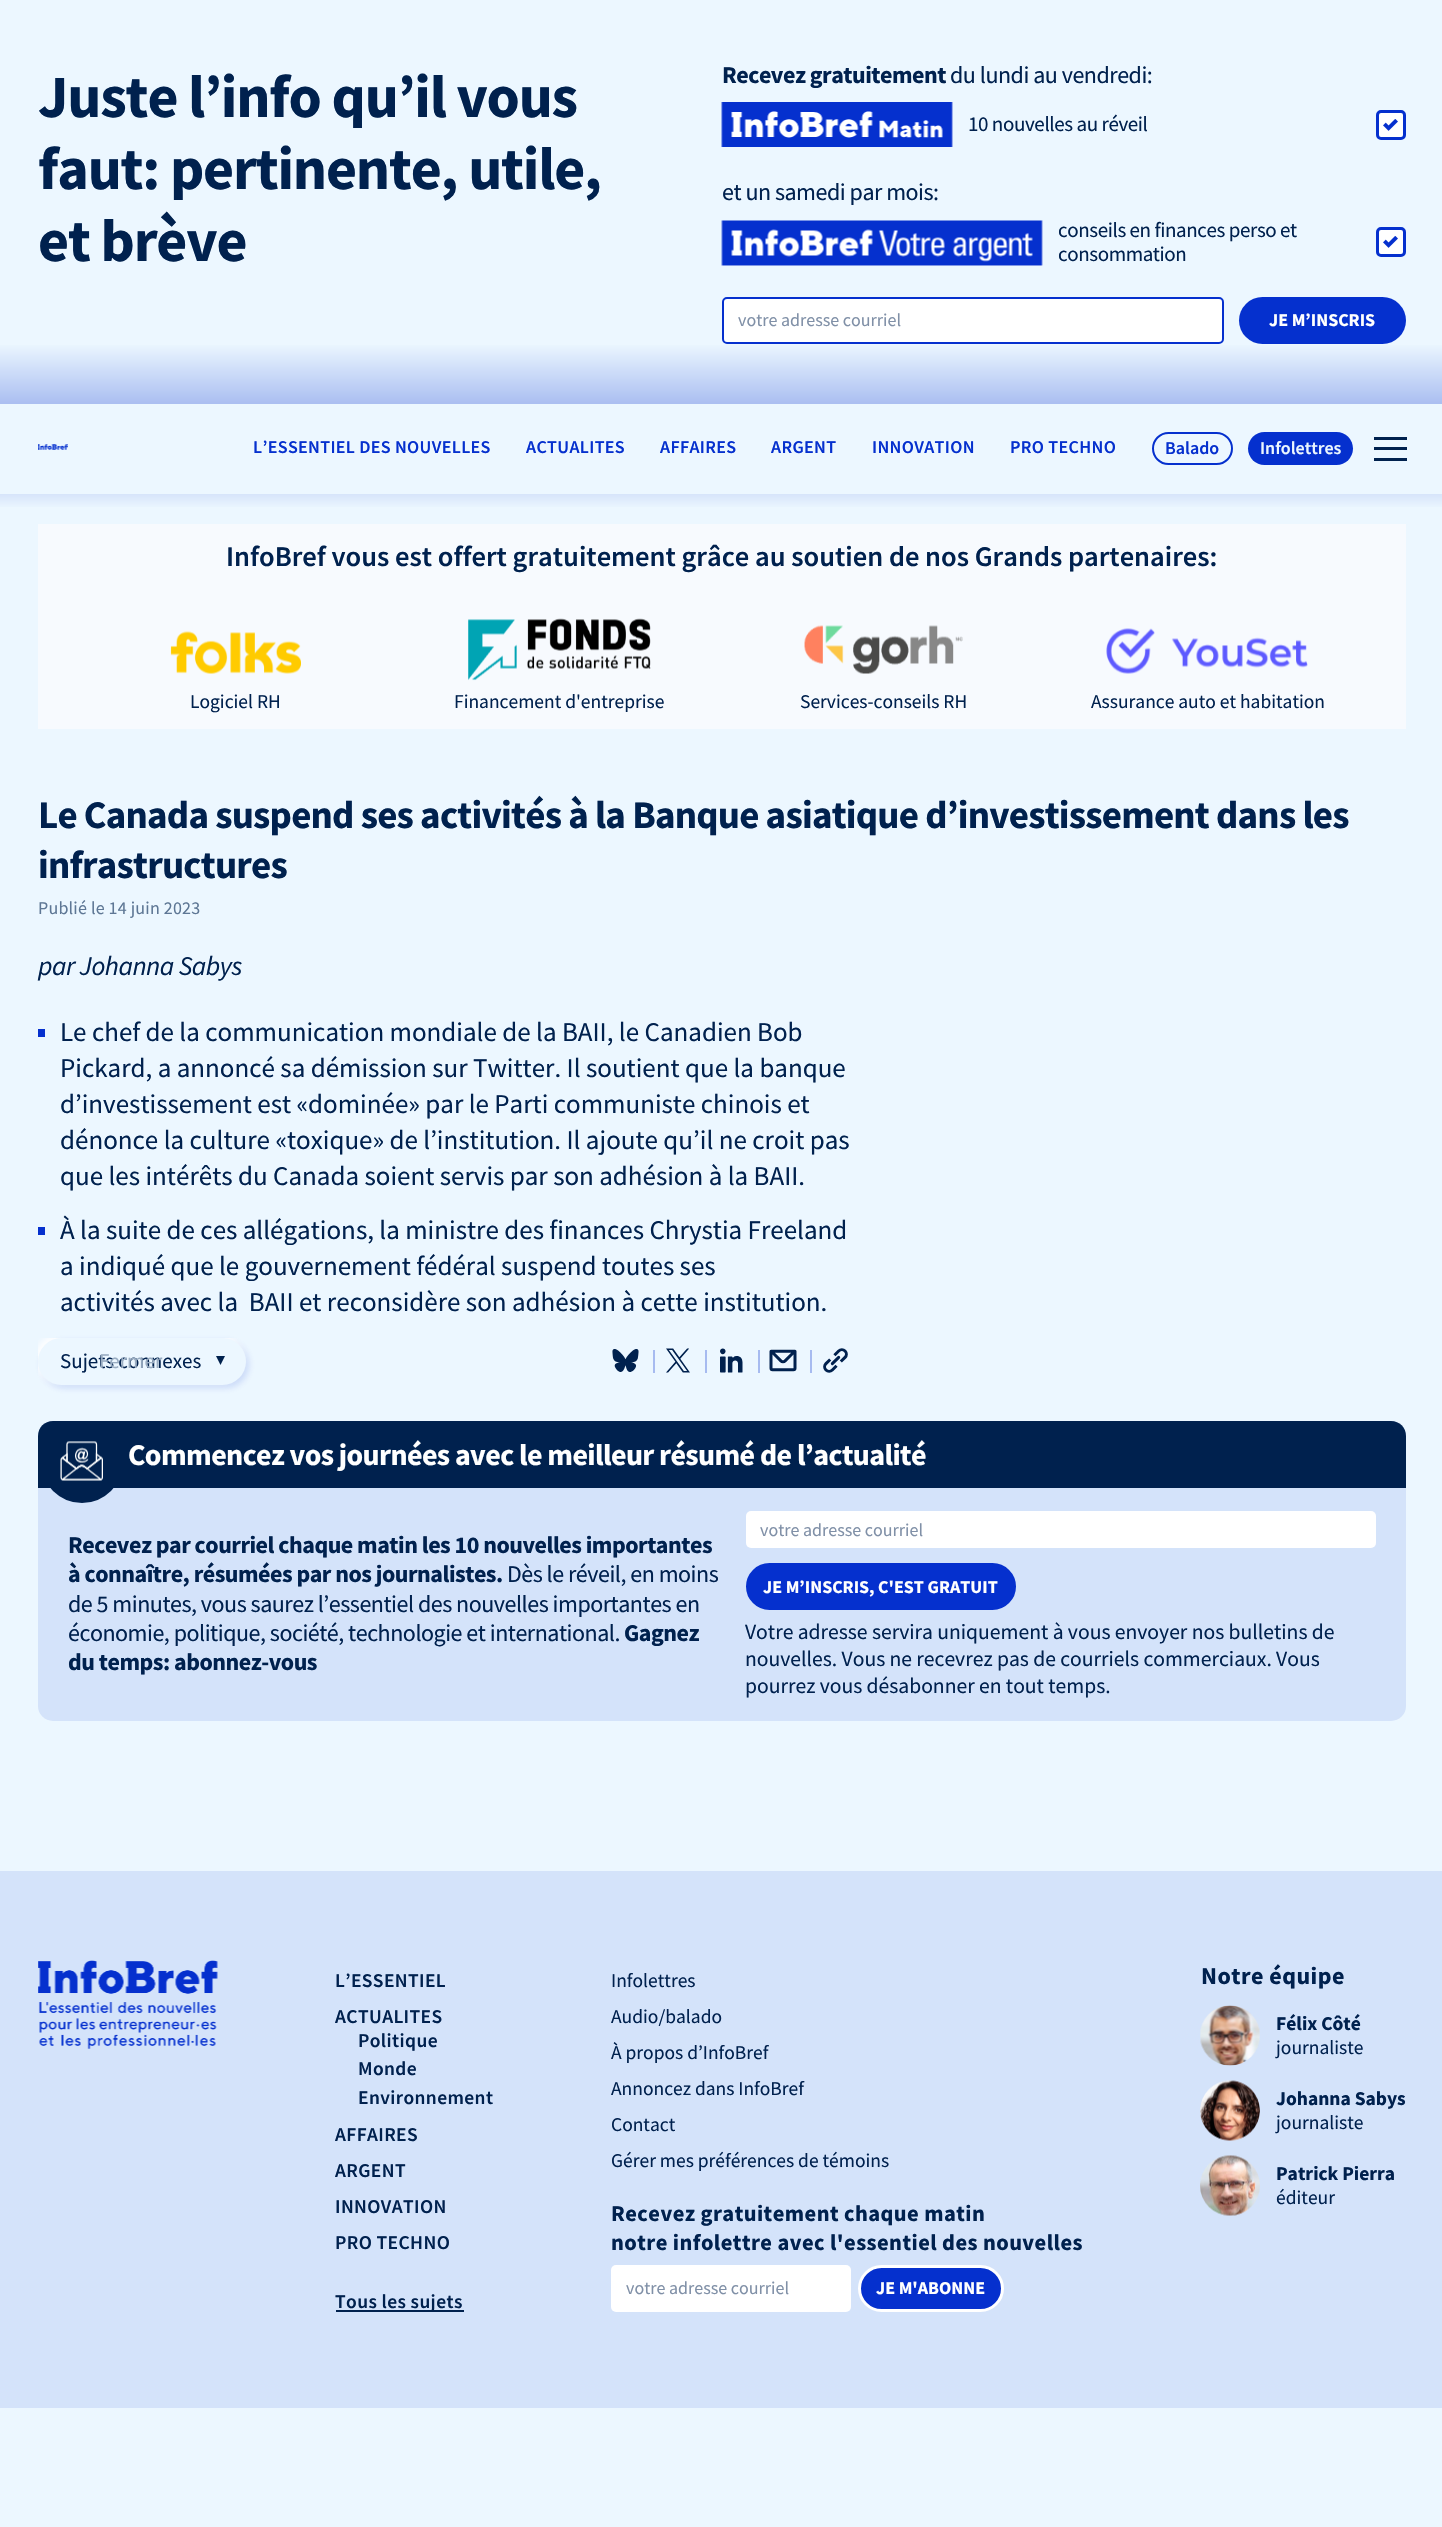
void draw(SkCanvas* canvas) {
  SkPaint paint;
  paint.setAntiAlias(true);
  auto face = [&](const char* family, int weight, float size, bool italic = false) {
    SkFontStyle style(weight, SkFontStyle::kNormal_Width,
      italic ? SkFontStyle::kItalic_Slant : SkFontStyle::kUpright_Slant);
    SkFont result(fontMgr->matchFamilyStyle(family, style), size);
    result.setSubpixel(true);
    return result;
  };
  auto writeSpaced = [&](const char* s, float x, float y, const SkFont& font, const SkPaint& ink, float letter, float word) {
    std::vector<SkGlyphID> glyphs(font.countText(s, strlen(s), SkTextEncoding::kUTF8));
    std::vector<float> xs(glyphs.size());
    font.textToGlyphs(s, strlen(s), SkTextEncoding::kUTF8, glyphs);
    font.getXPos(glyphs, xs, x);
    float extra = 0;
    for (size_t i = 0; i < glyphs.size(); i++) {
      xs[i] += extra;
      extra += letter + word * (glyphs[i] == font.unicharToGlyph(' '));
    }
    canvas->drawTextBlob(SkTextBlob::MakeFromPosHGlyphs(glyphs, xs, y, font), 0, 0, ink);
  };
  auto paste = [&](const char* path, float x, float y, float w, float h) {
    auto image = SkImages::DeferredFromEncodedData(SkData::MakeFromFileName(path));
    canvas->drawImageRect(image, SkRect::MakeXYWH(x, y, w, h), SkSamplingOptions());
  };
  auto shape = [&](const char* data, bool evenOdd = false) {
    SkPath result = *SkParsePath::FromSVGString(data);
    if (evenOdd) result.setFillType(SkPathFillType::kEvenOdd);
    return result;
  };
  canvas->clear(0xffecf7ff);
  paint.setColor(0xffffffff);
  canvas->drawRect(SkRect::MakeXYWH(722, 102, 231, 45), paint);
  paste("img/1.png", 721, 102, 232, 45);
  canvas->drawRoundRect(SkRect::MakeXYWH(1377.5f, 111.5f, 27, 27), 3.5f, 3.5f, paint);
  paint.setStroke(true);
  paint.setStrokeWidth(3);
  paint.setColor(0xff0530ce);
  canvas->drawRoundRect(SkRect::MakeXYWH(1377.5f, 111.5f, 27, 27), 3.5f, 3.5f, paint);
  paste("img/2.png", 1383, 119, 15, 12);
  paint.setStroke(false);
  paint.setColor(0xffffffff);
  canvas->drawRect(SkRect::MakeXYWH(722, 221, 321, 45), paint);
  paste("img/3.png", 721, 220, 322, 46);
  canvas->drawRoundRect(SkRect::MakeXYWH(1377.5f, 228.5f, 27, 27), 3.5f, 3.5f, paint);
  paint.setStroke(true);
  paint.setColor(0xff0530ce);
  canvas->drawRoundRect(SkRect::MakeXYWH(1377.5f, 228.5f, 27, 27), 3.5f, 3.5f, paint);
  paste("img/2.png", 1383, 236, 15, 12);
  paint.setStroke(false);
  paint.setColor(0xffffffff);
  canvas->drawRoundRect(SkRect::MakeXYWH(723, 298, 500, 45), 4, 4, paint);
  paint.setStroke(true);
  paint.setStrokeWidth(2);
  paint.setColor(0xff0530ce);
  canvas->drawRoundRect(SkRect::MakeXYWH(723, 298, 500, 45), 4, 4, paint);
  paint.setStroke(false);
  canvas->drawRoundRect(SkRect::MakeXYWH(1239, 297, 167, 47), 23.5f, 23.5f, paint);
  {
    const SkColor colors[] = {0xffabbff1, 0xffecf7ff};
    const float stops[] = {0, 1};
    const SkPoint ends[] = {{722, 403}, {722, 343}};
    paint.setShader(SkGradientShader::MakeLinear(ends, colors, stops, 2, SkTileMode::kClamp));
    paint.setAlpha(255);
  }
  canvas->drawRect(SkRect::MakeXYWH(0, 345, 1442, 59), paint);
  paste("img/4.png", 38, 444, 30, 6);
  paint.setStroke(true);
  paint.setShader(nullptr);
  paint.setColor(0xff0530ce);
  canvas->drawRoundRect(SkRect::MakeXYWH(1153, 433, 79, 31), 15.5f, 15.5f, paint);
  paint.setStroke(false);
  canvas->drawRoundRect(SkRect::MakeXYWH(1248, 432, 105, 33), 16.5f, 16.5f, paint);
  {
    const struct { float x, y, w, h; SkColor color; } items[] = {
      {1374, 437, 33, 3, 0xff00214e},
      {1374, 447, 33, 3, 0xff00214e},
      {1374, 458, 33, 3, 0xff00214e},
    };
    for (auto [x, y, w, h, color] : items) {
      paint.setColor(color);
      canvas->drawRect(SkRect::MakeXYWH(x, y, w, h), paint);
    }
  }
  {
    const SkColor colors[] = {0xffd5e3fa, 0xffecf7ff};
    const float stops[] = {0, 1};
    const SkPoint ends[] = {{722, 493}, {722, 509}};
    paint.setShader(SkGradientShader::MakeLinear(ends, colors, stops, 2, SkTileMode::kClamp));
    paint.setAlpha(255);
  }
  canvas->drawRect(SkRect::MakeXYWH(0, 494, 1442, 13), paint);
  paint.setShader(nullptr);
  paint.setColor(0xfff7fafe);
  canvas->drawRect(SkRect::MakeXYWH(38, 524, 1368, 205), paint);
  paste("img/5.png", 170, 631, 131, 43);
  paste("img/6.png", 468, 618, 183, 63);
  paste("img/7.png", 804, 625, 159, 49);
  paste("img/8.png", 1106, 628, 202, 46);
  paint.setColor(0xff0530ce);
  canvas->drawRect(SkRect::MakeXYWH(38, 1029, 7, 8), paint);
  canvas->drawRect(SkRect::MakeXYWH(38, 1227, 7, 8), paint);
  paint.setColor(0x260530ce);
  paint.setMaskFilter(SkMaskFilter::MakeBlur(kNormal_SkBlurStyle, 3));
  canvas->drawRoundRect(SkRect::MakeXYWH(41, 1341, 208, 47), 23.5f, 23.5f, paint);
  paint.setMaskFilter(nullptr);
  canvas->save();
  canvas->clipRect(SkRect::MakeXYWH(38, 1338, 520, 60));
  paint.setColor(0xffffffff);
  paint.setMaskFilter(SkMaskFilter::MakeBlur(kNormal_SkBlurStyle, 3));
  canvas->drawRoundRect(SkRect::MakeXYWH(35, 1335, 208, 47), 23.5f, 23.5f, paint);
  paint.setMaskFilter(nullptr);
  canvas->restore();
  paint.setColor(0xffecf7ff);
  canvas->drawRoundRect(SkRect::MakeXYWH(38, 1338, 208, 47), 23.5f, 23.5f, paint);
  paint.setColor(0xff00214e);
  canvas->drawPath(shape("M216 1356H225L220.5 1365Z"), paint);
  paste("img/9.png", 612, 1349, 27, 23);
  paint.setColor(0xffa7bbf0);
  canvas->drawRect(SkRect::MakeXYWH(653, 1350, 2, 23), paint);
  paste("img/10.png", 666, 1348, 24, 25);
  canvas->drawRect(SkRect::MakeXYWH(705, 1350, 2, 23), paint);
  paste("img/11.png", 720, 1348, 23, 25);
  canvas->drawRect(SkRect::MakeXYWH(758, 1350, 2, 23), paint);
  paste("img/12.png", 769, 1349, 28, 23);
  canvas->drawRect(SkRect::MakeXYWH(810, 1350, 2, 23), paint);
  paste("img/13.png", 823, 1348, 25, 25);
  paint.setColor(0xffd4e3fa);
  canvas->drawRoundRect(SkRect::MakeXYWH(38, 1421, 1368, 300), 15, 15, paint);
  paint.setColor(0xff00214e);
  canvas->drawPath(shape("M53 1421H1391C1399.5 1421 1406 1427.5 1406 1436V1488H38V1436C38 1427.5 44.5 1421 53 1421Z"), paint);
  canvas->drawCircle(82, 1462, 41, paint);
  paste("img/14.png", 60, 1441, 43, 40);
  paint.setColor(0xffffffff);
  canvas->drawRoundRect(SkRect::MakeXYWH(746, 1511, 630, 37), 5, 5, paint);
  paint.setColor(0xff0530ce);
  canvas->drawRoundRect(SkRect::MakeXYWH(747.5f, 1564.5f, 267, 44), 22, 22, paint);
  paint.setStroke(true);
  paint.setStrokeWidth(3);
  canvas->drawRoundRect(SkRect::MakeXYWH(747.5f, 1564.5f, 267, 44), 22, 22, paint);
  paint.setStroke(false);
  paint.setColor(0xffd4e3fa);
  canvas->drawRect(SkRect::MakeXYWH(0, 1871, 1442, 537), paint);
  paste("img/15.png", 38, 1960, 180, 89);
  paint.setColor(0xff00214e);
  canvas->drawRect(SkRect::MakeXYWH(336, 2310, 128, 2), paint);
  paint.setColor(0xffffffff);
  canvas->drawRoundRect(SkRect::MakeXYWH(611, 2265, 240, 47), 5, 5, paint);
  paint.setColor(0xff0530ce);
  canvas->drawRoundRect(SkRect::MakeXYWH(859.5f, 2266.5f, 143, 44), 22, 22, paint);
  paint.setStroke(true);
  paint.setColor(0xffffffff);
  canvas->drawRoundRect(SkRect::MakeXYWH(859.5f, 2266.5f, 143, 44), 22, 22, paint);
  paste("img/16.png", 1200, 2005, 60, 61);
  paste("img/17.png", 1200, 2080, 60, 61);
  paste("img/18.png", 1200, 2155, 60, 61);
  auto f0 = face("Source Sans Pro", 700, 60);
  paint.setStroke(false);
  paint.setColor(0xff00214e);
  {
    const struct { const char* s; float x, y; } items[] = {
      {"Juste l’info qu’il vous", 38, 117},
      {"faut: pertinente, utile,", 38, 189},
      {"et brève", 38, 261},
    };
    for (auto [s, x, y] : items) {
      writeSpaced(s, x, y, f0, paint, -1.2f, 0);
    }
  }
  auto f1 = face("Source Sans Pro", 700, 24);
  writeSpaced("Recevez gratuitement", 722, 83, f1, paint, -0.48f, 0);
  auto f2 = face("Source Sans Pro", 400, 24);
  writeSpaced("du lundi au vendredi:", 950, 83, f2, paint, -0.48f, 0);
  auto f3 = face("Source Sans Pro", 400, 21);
  writeSpaced("10 nouvelles au réveil", 968, 131, f3, paint, -0.4f, 0);
  writeSpaced("et un samedi par mois:", 722, 200, f2, paint, -0.48f, 0);
  writeSpaced("conseils en finances perso et", 1058, 237, f3, paint, -0.4f, 0);
  writeSpaced("consommation", 1058, 261, f3, paint, -0.4f, 0);
  auto f4 = face("Source Sans Pro", 400, 18);
  paint.setColor(0xff8090a7);
  canvas->drawString("votre adresse courriel", 738, 326, f4, paint);
  auto f5 = face("Source Sans Pro", 700, 18);
  paint.setColor(0xffffffff);
  canvas->drawString("JE M’INSCRIS", 1269, 326, f5, paint);
  auto f6 = face("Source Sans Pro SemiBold", 600, 18);
  paint.setColor(0xff0530ce);
  {
    const struct { const char* s; float x, y; } items[] = {
      {"L’ESSENTIEL DES NOUVELLES", 253, 453},
      {"ACTUALITES", 526, 453},
      {"AFFAIRES", 660, 453},
      {"ARGENT", 771, 453},
      {"INNOVATION", 872, 453},
      {"PRO TECHNO", 1010, 453},
    };
    for (auto [s, x, y] : items) {
      writeSpaced(s, x, y, f6, paint, 0.35f, 0);
    }
  }
  canvas->drawString("Balado", 1165, 454, f6, paint);
  paint.setColor(0xffecf7ff);
  canvas->drawString("Infolettres", 1260, 454, f6, paint);
  auto f7 = face("Source Sans Pro SemiBold", 600, 28.5f);
  paint.setColor(0xff00214e);
  canvas->drawString("InfoBref vous est offert gratuitement grâce au soutien de nos Grands partenaires:", 226, 566, f7, paint);
  auto f8 = face("Source Sans Pro", 400, 19.5f);
  {
    const struct { const char* s; float x, y; } items[] = {
      {"Logiciel RH", 190, 708},
      {"Financement d'entreprise", 454, 708},
      {"Services-conseils RH", 800, 708},
      {"Assurance auto et habitation", 1091, 708},
    };
    for (auto [s, x, y] : items) {
      canvas->drawString(s, x, y, f8, paint);
    }
  }
  auto f9 = face("Source Sans Pro", 700, 39);
  writeSpaced("Le Canada suspend ses activités à la Banque asiatique d’investissement dans les", 38, 828, f9, paint, -0.78f, 0);
  writeSpaced("infrastructures", 38, 878, f9, paint, -0.78f, 0);
  paint.setColor(0xff5e7795);
  writeSpaced("Publié le 14 juin 2023", 38, 914, f4, paint, 0.2f, 0);
  auto f10 = face("Source Sans Pro", 400, 27, true);
  paint.setColor(0xff00214e);
  writeSpaced("par Johanna Sabys", 38, 975, f10, paint, -0.5f, 0);
  auto f11 = face("Source Sans Pro", 400, 27);
  {
    const struct { const char* s; float x, y; } items[] = {
      {"Le chef de la communication mondiale de la BAII, le Canadien Bob", 60, 1041},
      {"Pickard, a annoncé sa démission sur Twitter. Il soutient que la banque", 60, 1077},
      {"d’investissement est «dominée» par le Parti communiste chinois et", 60, 1113},
      {"dénonce la culture «toxique» de l’institution. Il ajoute qu’il ne croit pas", 60, 1149},
      {"que les intérêts du Canada soient servis par son adhésion à la BAII.", 60, 1185},
      {"À la suite de ces allégations, la ministre des finances Chrystia Freeland", 60, 1239},
      {"a indiqué que le gouvernement fédéral suspend toutes ses", 60, 1275},
      {"activités avec la  BAII et reconsidère son adhésion à cette institution.", 60, 1311},
    };
    for (auto [s, x, y] : items) {
      canvas->drawString(s, x, y, f11, paint);
    }
  }
  canvas->drawString("Sujets connexes", 60, 1368, f3, paint);
  paint.setColor(0xff9aadc2);
  canvas->drawString("Fermer", 99, 1368, f3, paint);
  auto f12 = face("Source Sans Pro", 700, 30);
  paint.setColor(0xffffffff);
  writeSpaced("Commencez vos journées avec le meilleur résumé de l’actualité", 128, 1465, f12, paint, -0.6f, 0);
  paint.setColor(0xff00214e);
  writeSpaced("Recevez par courriel chaque matin les 10 nouvelles importantes", 68, 1553, f1, paint, -0.48f, 0);
  writeSpaced("à connaître, résumées par nos journalistes.", 68, 1582, f1, paint, -0.48f, 0);
  {
    const struct { const char* s; float x, y; } items[] = {
      {"Dès le réveil, en moins", 507, 1582},
      {"de 5 minutes, vous saurez l’essentiel des nouvelles importantes en", 68, 1612},
      {"économie, politique, société, technologie et international.", 68, 1641},
    };
    for (auto [s, x, y] : items) {
      writeSpaced(s, x, y, f2, paint, -0.48f, 0);
    }
  }
  writeSpaced("Gagnez", 624, 1641, f1, paint, -0.48f, 0);
  writeSpaced("du temps: abonnez-vous", 68, 1670, f1, paint, -0.48f, 0);
  paint.setColor(0xff8090a7);
  canvas->drawString("votre adresse courriel", 760, 1536, f4, paint);
  paint.setColor(0xffffffff);
  canvas->drawString("JE M’INSCRIS, C'EST GRATUIT", 763, 1593, f5, paint);
  auto f13 = face("Source Sans Pro", 400, 21.6f);
  paint.setColor(0xff00214e);
  {
    const struct { const char* s; float x, y; } items[] = {
      {"Votre adresse servira uniquement à vous envoyer nos bulletins de", 745, 1639},
      {"nouvelles. Vous ne recevrez pas de courriels commerciaux. Vous", 745, 1666},
      {"pourrez vous désabonner en tout temps.", 745, 1693},
    };
    for (auto [s, x, y] : items) {
      canvas->drawString(s, x, y, f13, paint);
    }
  }
  auto f14 = face("Source Sans Pro SemiBold", 600, 19.5f);
  {
    const struct { const char* s; float x, y; } items[] = {
      {"L’ESSENTIEL", 335, 1987},
      {"ACTUALITES", 335, 2023},
      {"Politique", 358, 2047},
      {"Monde", 358, 2075},
      {"Environnement", 358, 2104},
      {"AFFAIRES", 335, 2141},
      {"ARGENT", 335, 2177},
      {"INNOVATION", 335, 2213},
      {"PRO TECHNO", 335, 2249},
      {"Tous les sujets", 335, 2308},
    };
    for (auto [s, x, y] : items) {
      writeSpaced(s, x, y, f14, paint, 0.4f, 0);
    }
  }
  {
    const struct { const char* s; float x, y; } items[] = {
      {"Infolettres", 611, 1987},
      {"Audio/balado", 611, 2023},
      {"À propos d’InfoBref", 611, 2059},
      {"Annoncez dans InfoBref", 611, 2095},
      {"Contact", 611, 2131},
      {"Gérer mes préférences de témoins", 611, 2167},
    };
    for (auto [s, x, y] : items) {
      canvas->drawString(s, x, y, f8, paint);
    }
  }
  auto f15 = face("Source Sans Pro", 700, 22.5f);
  writeSpaced("Recevez gratuitement chaque matin", 611, 2221, f15, paint, 0.45f, 0);
  writeSpaced("notre infolettre avec l'essentiel des nouvelles", 611, 2250, f15, paint, 0.45f, 0);
  paint.setColor(0xff8090a7);
  canvas->drawString("votre adresse courriel", 626, 2294, f4, paint);
  paint.setColor(0xffffffff);
  canvas->drawString("JE M'ABONNE", 876, 2294, f5, paint);
  paint.setColor(0xff00214e);
  writeSpaced("Notre équipe", 1201, 1984, f1, paint, 0.5f, 0);
  auto f16 = face("Source Sans Pro", 700, 19.5f);
  canvas->drawString("Félix Côté", 1276, 2030, f16, paint);
  canvas->drawString("journaliste", 1276, 2054, f8, paint);
  canvas->drawString("Johanna Sabys", 1276, 2105, f16, paint);
  canvas->drawString("journaliste", 1276, 2129, f8, paint);
  canvas->drawString("Patrick Pierra", 1276, 2180, f16, paint);
  canvas->drawString("éditeur", 1276, 2204, f8, paint);
}
